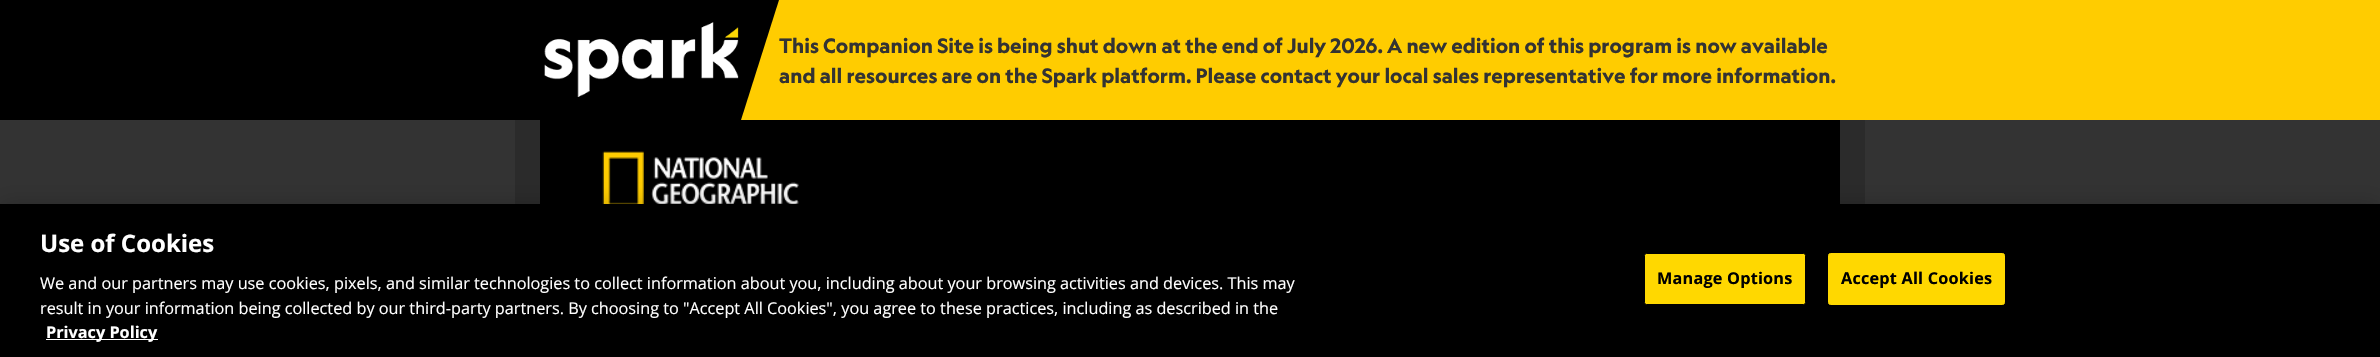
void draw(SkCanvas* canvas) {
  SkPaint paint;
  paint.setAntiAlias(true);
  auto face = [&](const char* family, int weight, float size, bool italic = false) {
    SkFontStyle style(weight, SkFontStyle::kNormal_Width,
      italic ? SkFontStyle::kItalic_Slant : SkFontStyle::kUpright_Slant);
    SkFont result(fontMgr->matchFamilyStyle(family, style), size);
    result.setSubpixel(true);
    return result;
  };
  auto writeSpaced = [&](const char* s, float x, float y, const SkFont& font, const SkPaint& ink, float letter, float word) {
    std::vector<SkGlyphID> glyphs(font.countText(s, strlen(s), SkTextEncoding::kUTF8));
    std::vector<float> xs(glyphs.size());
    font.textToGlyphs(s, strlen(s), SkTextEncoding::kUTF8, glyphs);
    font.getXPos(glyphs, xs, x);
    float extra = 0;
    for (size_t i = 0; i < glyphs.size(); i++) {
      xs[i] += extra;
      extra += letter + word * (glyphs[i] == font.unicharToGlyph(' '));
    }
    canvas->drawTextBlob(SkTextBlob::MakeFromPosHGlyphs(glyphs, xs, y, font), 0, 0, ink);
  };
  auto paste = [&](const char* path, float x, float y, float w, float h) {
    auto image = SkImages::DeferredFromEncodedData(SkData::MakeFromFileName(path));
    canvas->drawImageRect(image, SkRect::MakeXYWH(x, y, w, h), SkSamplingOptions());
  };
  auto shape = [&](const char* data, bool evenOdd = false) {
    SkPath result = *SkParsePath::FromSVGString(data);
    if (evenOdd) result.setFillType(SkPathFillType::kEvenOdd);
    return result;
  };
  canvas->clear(0xff333333);
  paint.setColor(0xff000000);
  canvas->drawRect(SkRect::MakeXYWH(0, 0, 741, 120), paint);
  paint.setColor(0xffffcc00);
  canvas->drawRect(SkRect::MakeXYWH(741, 0, 1639, 120), paint);
  paste("img/1.png", 544, 20, 197, 80);
  paint.setColor(0xff000000);
  canvas->drawPath(shape("M741 0H779L741 120Z"), paint);
  {
    const struct { float x, y, w, h; SkColor color; } items[] = {
      {1840, 120, 25, 84, 0xff2b2b2b},
      {515, 120, 25, 84, 0xff2b2b2b},
      {540, 120, 1300, 84, 0xff000000},
    };
    for (auto [x, y, w, h, color] : items) {
      paint.setColor(color);
      canvas->drawRect(SkRect::MakeXYWH(x, y, w, h), paint);
    }
  }
  paste("img/2.png", 602, 151, 197, 53);
  paint.setColor(0x33000000);
  paint.setMaskFilter(SkMaskFilter::MakeBlur(kNormal_SkBlurStyle, 11));
  canvas->drawRect(SkRect::MakeXYWH(0, 204, 2380, 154), paint);
  paint.setMaskFilter(nullptr);
  paint.setColor(0xff000000);
  canvas->drawRect(SkRect::MakeXYWH(0, 204, 2380, 153), paint);
  paint.setColor(0xffffffff);
  canvas->drawRect(SkRect::MakeXYWH(46, 339, 112, 1), paint);
  paint.setColor(0xffffd800);
  canvas->drawRoundRect(SkRect::MakeXYWH(1644.5f, 253.5f, 161, 51), 2, 2, paint);
  paint.setStroke(true);
  paint.setStrokeWidth(1);
  paint.setColor(0xff000000);
  canvas->drawRoundRect(SkRect::MakeXYWH(1644.5f, 253.5f, 161, 51), 2, 2, paint);
  paint.setStroke(false);
  paint.setColor(0xffffd800);
  canvas->drawRoundRect(SkRect::MakeXYWH(1828.5f, 253.5f, 176, 51), 2, 2, paint);
  paint.setStroke(true);
  canvas->drawRoundRect(SkRect::MakeXYWH(1828.5f, 253.5f, 176, 51), 2, 2, paint);
  auto f0 = face("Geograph", 700, 20);
  paint.setStroke(false);
  paint.setColor(0xff333333);
  canvas->drawString("This Companion Site is being shut down at the end of July 2026. A new edition of this program is now available", 779, 53, f0, paint);
  canvas->drawString("and all resources are on the Spark platform. Please contact your local sales representative for more information.", 779, 83, f0, paint);
  auto f1 = face("Open Sans", 700, 24);
  paint.setColor(0xffffffff);
  canvas->drawString("Use of Cookies", 40, 252, f1, paint);
  auto f2 = face("Open Sans", 400, 16.25f);
  canvas->drawString("We and our partners may use cookies, pixels, and similar technologies to collect information about you, including about your browsing activities and devices. This may", 40, 289, f2, paint);
  canvas->drawString("result in your information being collected by our third-party partners. By choosing to \"Accept All Cookies\", you agree to these practices, including as described in the", 40, 314, f2, paint);
  auto f3 = face("Open Sans", 700, 16.25f);
  canvas->drawString("Privacy Policy", 46, 338, f3, paint);
  paint.setColor(0xff000000);
  writeSpaced("Manage Options", 1657, 284, f3, paint, 0.2f, 0);
  writeSpaced("Accept All Cookies", 1841, 284, f3, paint, 0.2f, 0);
}
